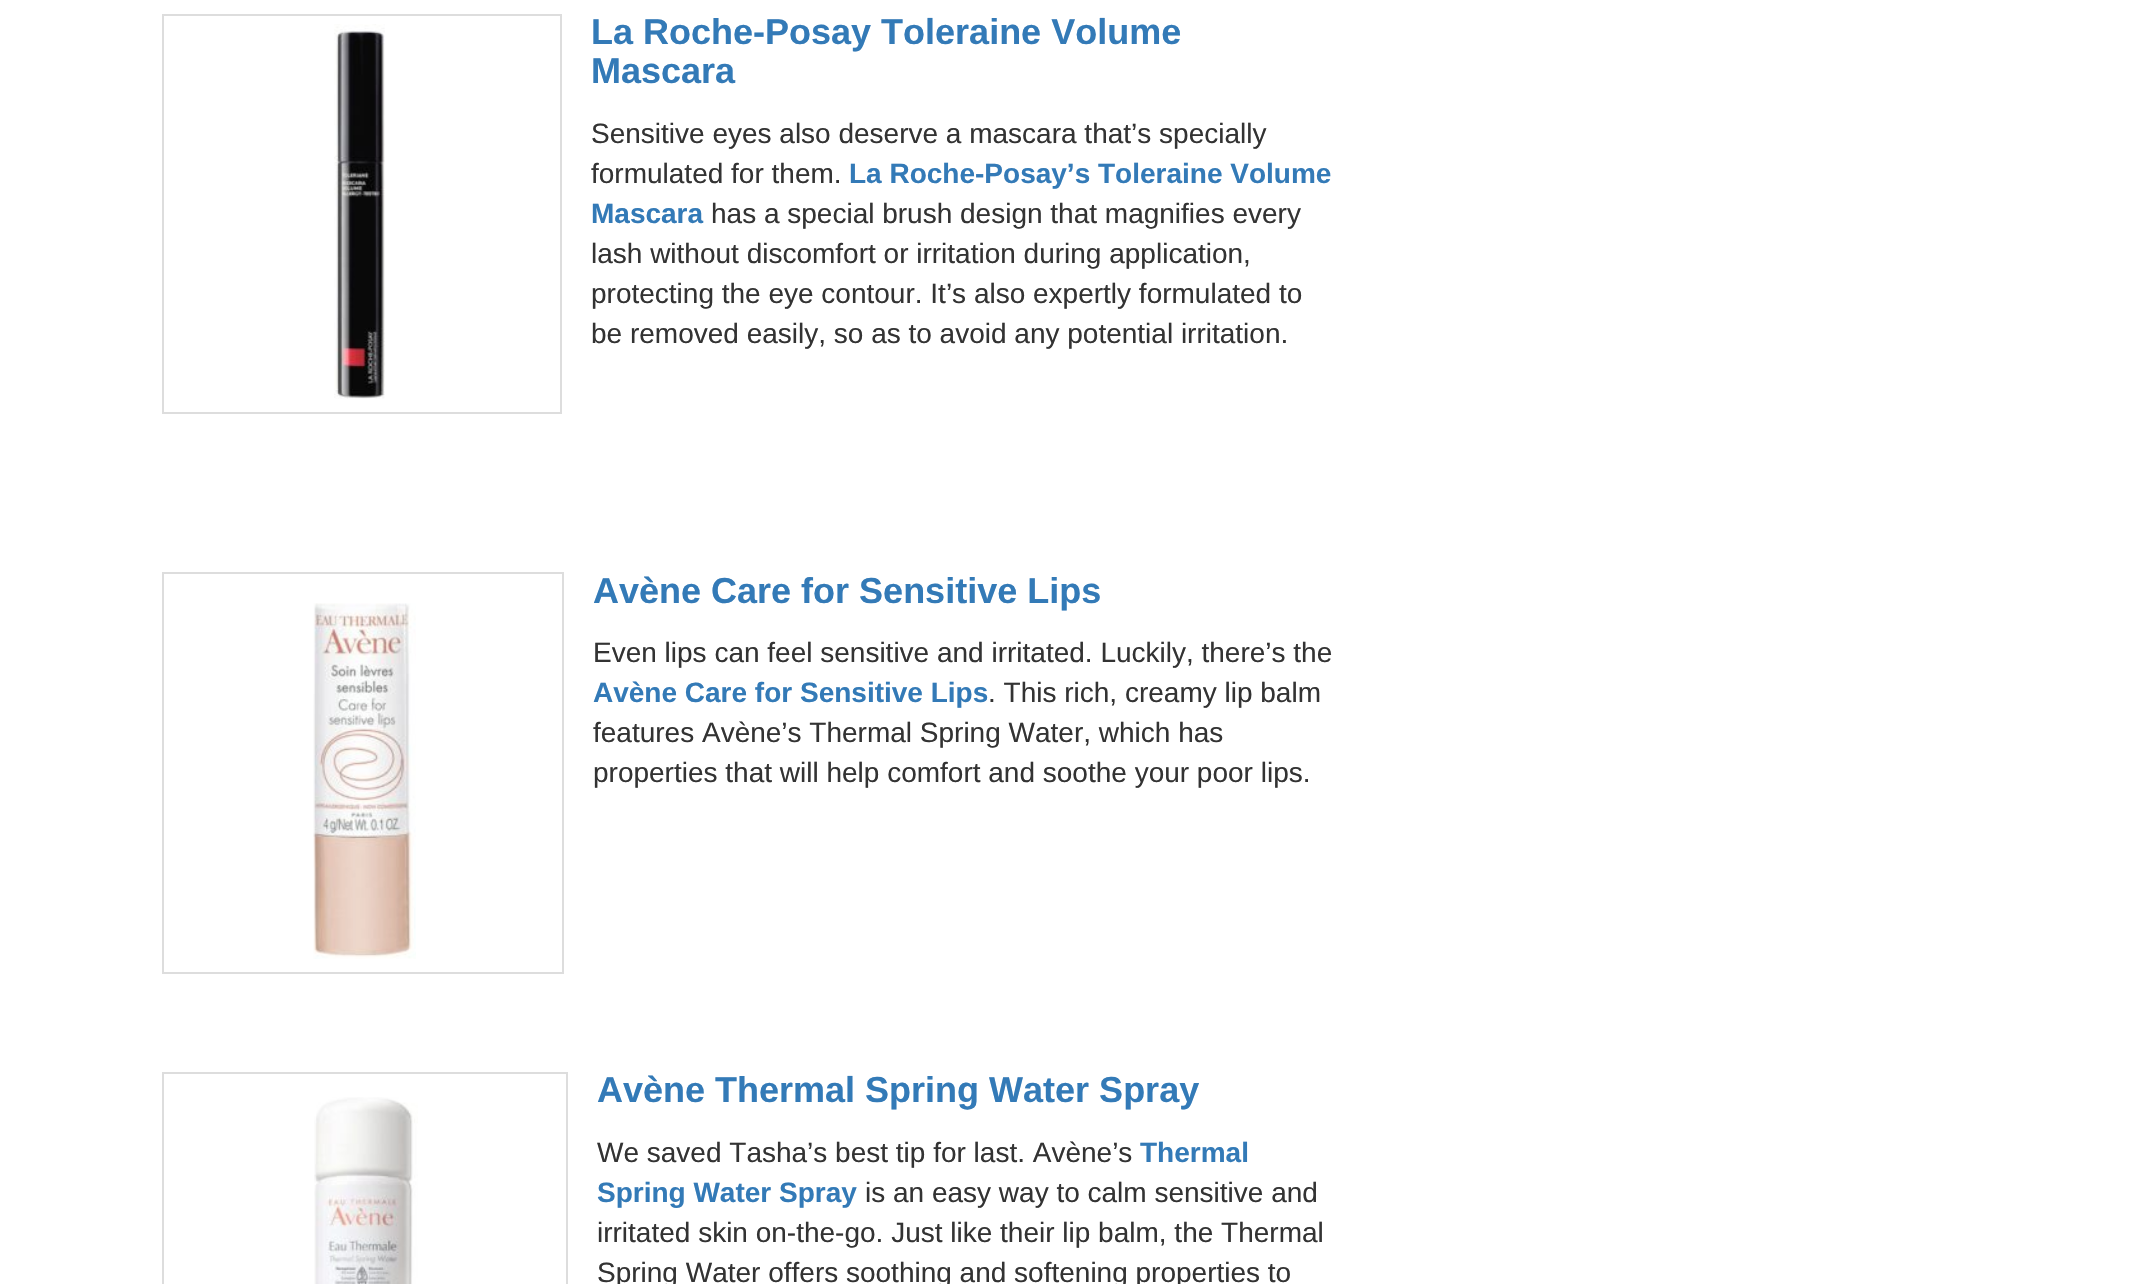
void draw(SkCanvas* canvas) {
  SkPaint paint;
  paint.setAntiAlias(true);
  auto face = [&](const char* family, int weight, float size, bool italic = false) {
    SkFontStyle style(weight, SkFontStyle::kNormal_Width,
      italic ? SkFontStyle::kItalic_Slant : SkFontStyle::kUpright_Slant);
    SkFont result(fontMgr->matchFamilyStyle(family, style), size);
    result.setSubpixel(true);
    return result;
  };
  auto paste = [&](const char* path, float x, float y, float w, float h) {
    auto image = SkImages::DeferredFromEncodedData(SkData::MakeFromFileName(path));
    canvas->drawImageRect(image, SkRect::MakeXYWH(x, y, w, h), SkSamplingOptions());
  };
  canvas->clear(0xffffffff);
  paint.setStroke(true);
  paint.setStrokeWidth(2);
  paint.setColor(0xffdddddd);
  canvas->drawRect(SkRect::MakeXYWH(163, 15, 398, 398), paint);
  paste("img/1.png", 334, 24, 51, 375);
  canvas->drawRect(SkRect::MakeXYWH(163, 573, 400, 400), paint);
  paste("img/2.png", 313, 603, 103, 356);
  canvas->drawRect(SkRect::MakeXYWH(163, 1073, 404, 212), paint);
  paste("img/3.png", 314, 1097, 104, 187);
  auto f0 = face("Liberation Sans", 700, 36);
  paint.setStroke(false);
  paint.setColor(0xff337ab7);
  canvas->drawString("La Roche-Posay Toleraine Volume", 591, 44, f0, paint);
  canvas->drawString("Mascara", 591, 83, f0, paint);
  auto f1 = face("Liberation Sans", 400, 28);
  paint.setColor(0xff333333);
  canvas->drawString("Sensitive eyes also deserve a mascara that’s specially", 591, 143, f1, paint);
  canvas->drawString("formulated for them.", 591, 183, f1, paint);
  auto f2 = face("Liberation Sans", 700, 28);
  paint.setColor(0xff337ab7);
  canvas->drawString("La Roche-Posay’s Toleraine Volume", 849, 183, f2, paint);
  canvas->drawString("Mascara", 591, 223, f2, paint);
  paint.setColor(0xff333333);
  {
    const struct { const char* s; float x, y; } items[] = {
      {"has a special brush design that magnifies every", 711, 223},
      {"lash without discomfort or irritation during application,", 591, 263},
      {"protecting the eye contour. It’s also expertly formulated to", 591, 303},
      {"be removed easily, so as to avoid any potential irritation.", 591, 343},
    };
    for (auto [s, x, y] : items) {
      canvas->drawString(s, x, y, f1, paint);
    }
  }
  paint.setColor(0xff337ab7);
  canvas->drawString("Avène Care for Sensitive Lips", 593, 603, f0, paint);
  paint.setColor(0xff333333);
  canvas->drawString("Even lips can feel sensitive and irritated. Luckily, there’s the", 593, 662, f1, paint);
  paint.setColor(0xff337ab7);
  canvas->drawString("Avène Care for Sensitive Lips", 593, 702, f2, paint);
  paint.setColor(0xff333333);
  {
    const struct { const char* s; float x, y; } items[] = {
      {". This rich, creamy lip balm", 988, 702},
      {"features Avène’s Thermal Spring Water, which has", 593, 742},
      {"properties that will help comfort and soothe your poor lips.", 593, 782},
    };
    for (auto [s, x, y] : items) {
      canvas->drawString(s, x, y, f1, paint);
    }
  }
  paint.setColor(0xff337ab7);
  canvas->drawString("Avène Thermal Spring Water Spray", 597, 1102, f0, paint);
  paint.setColor(0xff333333);
  canvas->drawString("We saved Tasha’s best tip for last. Avène’s", 597, 1162, f1, paint);
  paint.setColor(0xff337ab7);
  canvas->drawString("Thermal", 1140, 1162, f2, paint);
  canvas->drawString("Spring Water Spray", 597, 1202, f2, paint);
  paint.setColor(0xff333333);
  {
    const struct { const char* s; float x, y; } items[] = {
      {"is an easy way to calm sensitive and", 865, 1202},
      {"irritated skin on-the-go. Just like their lip balm, the Thermal", 597, 1242},
      {"Spring Water offers soothing and softening properties to", 597, 1282},
    };
    for (auto [s, x, y] : items) {
      canvas->drawString(s, x, y, f1, paint);
    }
  }
}
